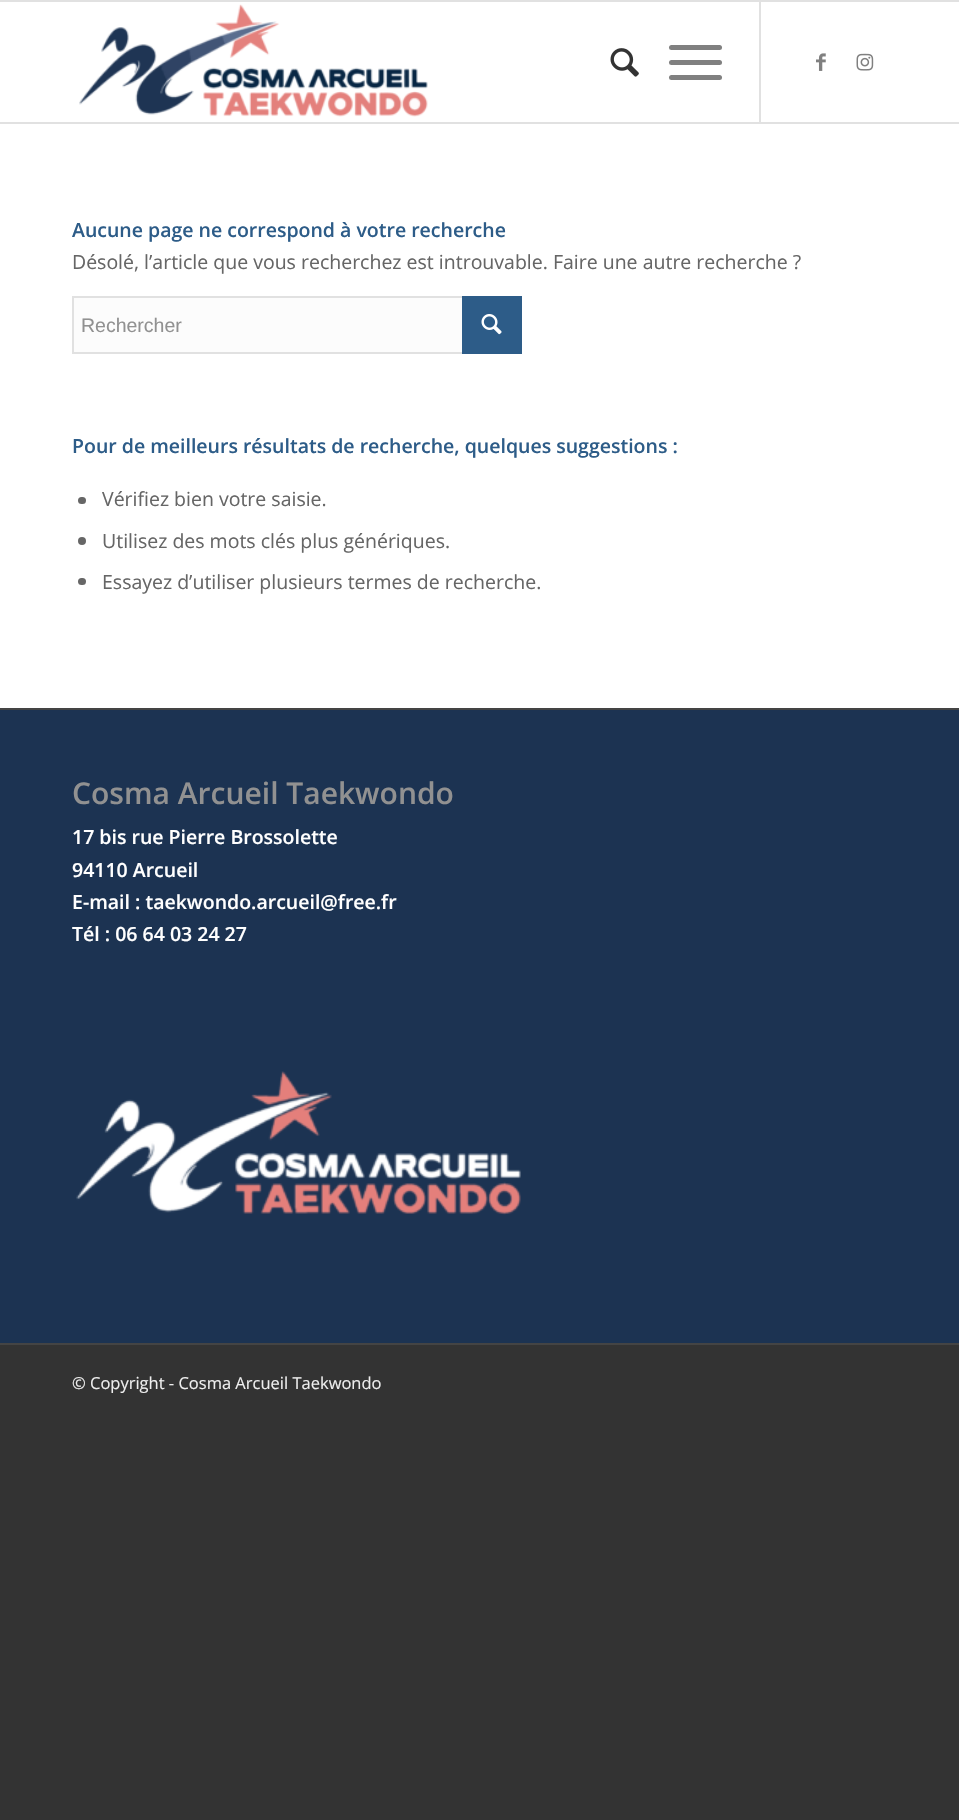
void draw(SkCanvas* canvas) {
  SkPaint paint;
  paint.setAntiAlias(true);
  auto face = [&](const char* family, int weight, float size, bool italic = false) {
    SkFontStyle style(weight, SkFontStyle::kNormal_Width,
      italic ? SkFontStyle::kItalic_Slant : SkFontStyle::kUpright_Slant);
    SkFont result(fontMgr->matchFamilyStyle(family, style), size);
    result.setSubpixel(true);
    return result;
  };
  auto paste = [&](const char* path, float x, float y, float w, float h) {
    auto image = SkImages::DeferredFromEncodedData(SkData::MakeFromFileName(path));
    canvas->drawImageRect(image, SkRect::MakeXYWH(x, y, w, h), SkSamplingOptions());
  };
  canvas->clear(0xff333333);
  {
    const struct { float x, y, w, h; SkColor color; } items[] = {
      {0, 2, 959, 706, 0xffffffff},
      {0, 0, 959, 2, 0xffe1e1e1},
      {0, 122, 959, 2, 0xffe1e1e1},
    };
    for (auto [x, y, w, h, color] : items) {
      paint.setColor(color);
      canvas->drawRect(SkRect::MakeXYWH(x, y, w, h), paint);
    }
  }
  paste("img/1.png", 79, 4, 349, 113);
  canvas->drawRect(SkRect::MakeXYWH(759, 2, 2, 120), paint);
  paste("img/2.png", 610, 48, 29, 29);
  paint.setColor(0xff808080);
  canvas->drawRoundRect(SkRect::MakeXYWH(669, 60, 53, 5), 2.5f, 2.5f, paint);
  canvas->drawRoundRect(SkRect::MakeXYWH(669, 45, 53, 5), 2.5f, 2.5f, paint);
  canvas->drawRoundRect(SkRect::MakeXYWH(669, 75, 53, 5), 2.5f, 2.5f, paint);
  paste("img/3.png", 816, 53, 10, 18);
  paste("img/4.png", 856, 53, 18, 18);
  paint.setColor(0xfffcfcfc);
  canvas->drawRect(SkRect::MakeXYWH(74, 298, 388, 54), paint);
  paint.setStroke(true);
  paint.setStrokeWidth(2);
  paint.setColor(0xffe1e1e1);
  canvas->drawRect(SkRect::MakeXYWH(73, 297, 448, 56), paint);
  paint.setStroke(false);
  paint.setColor(0xff2d5c88);
  canvas->drawRect(SkRect::MakeXYWH(462, 296, 60, 58), paint);
  paste("img/5.png", 481, 314, 21, 21);
  paint.setColor(0xff666666);
  canvas->drawRoundRect(SkRect::MakeXYWH(78, 497, 8, 7), 3.5f, 3.5f, paint);
  canvas->drawCircle(82, 541, 4, paint);
  canvas->drawRoundRect(SkRect::MakeXYWH(78, 578, 8, 7), 3.5f, 3.5f, paint);
  paint.setColor(0xff1c3352);
  canvas->drawRect(SkRect::MakeXYWH(0, 710, 959, 633), paint);
  paint.setColor(0xff444444);
  canvas->drawRect(SkRect::MakeXYWH(0, 708, 959, 2), paint);
  paste("img/6.png", 76, 1071, 445, 144);
  canvas->drawRect(SkRect::MakeXYWH(0, 1343, 959, 2), paint);
  auto f0 = face("Open Sans", 600, 19.5f);
  paint.setColor(0xff2d5c88);
  canvas->drawString("Aucune page ne correspond à votre recherche", 72, 237, f0, paint);
  auto f1 = face("Open Sans", 400, 19.5f);
  paint.setColor(0xff666666);
  canvas->drawString("Désolé, l’article que vous recherchez est introuvable. Faire une autre recherche ?", 72, 269, f1, paint);
  auto f2 = face("Liberation Sans", 400, 19.5f);
  paint.setColor(0xff919191);
  canvas->drawString("Rechercher", 81, 332, f2, paint);
  paint.setColor(0xff2d5c88);
  canvas->drawString("Pour de meilleurs résultats de recherche, quelques suggestions :", 72, 453, f0, paint);
  paint.setColor(0xff666666);
  {
    const struct { const char* s; float x, y; } items[] = {
      {"Vérifiez bien votre saisie.", 102, 506},
      {"Utilisez des mots clés plus génériques.", 102, 548},
      {"Essayez d’utiliser plusieurs termes de recherche.", 102, 589},
    };
    for (auto [s, x, y] : items) {
      canvas->drawString(s, x, y, f1, paint);
    }
  }
  auto f3 = face("Open Sans", 600, 30);
  paint.setColor(0xff919191);
  canvas->drawString("Cosma Arcueil Taekwondo", 72, 804, f3, paint);
  paint.setColor(0xffffffff);
  {
    const struct { const char* s; float x, y; } items[] = {
      {"17 bis rue Pierre Brossolette", 72, 844},
      {"94110 Arcueil", 72, 877},
      {"E-mail : taekwondo.arcueil@free.fr", 72, 909},
      {"Tél : 06 64 03 24 27", 72, 941},
    };
    for (auto [s, x, y] : items) {
      canvas->drawString(s, x, y, f0, paint);
    }
  }
  auto f4 = face("Open Sans", 400, 16.5f);
  paint.setColor(0xffeeeeee);
  canvas->drawString("© Copyright - Cosma Arcueil Taekwondo", 72, 1389, f4, paint);
}
